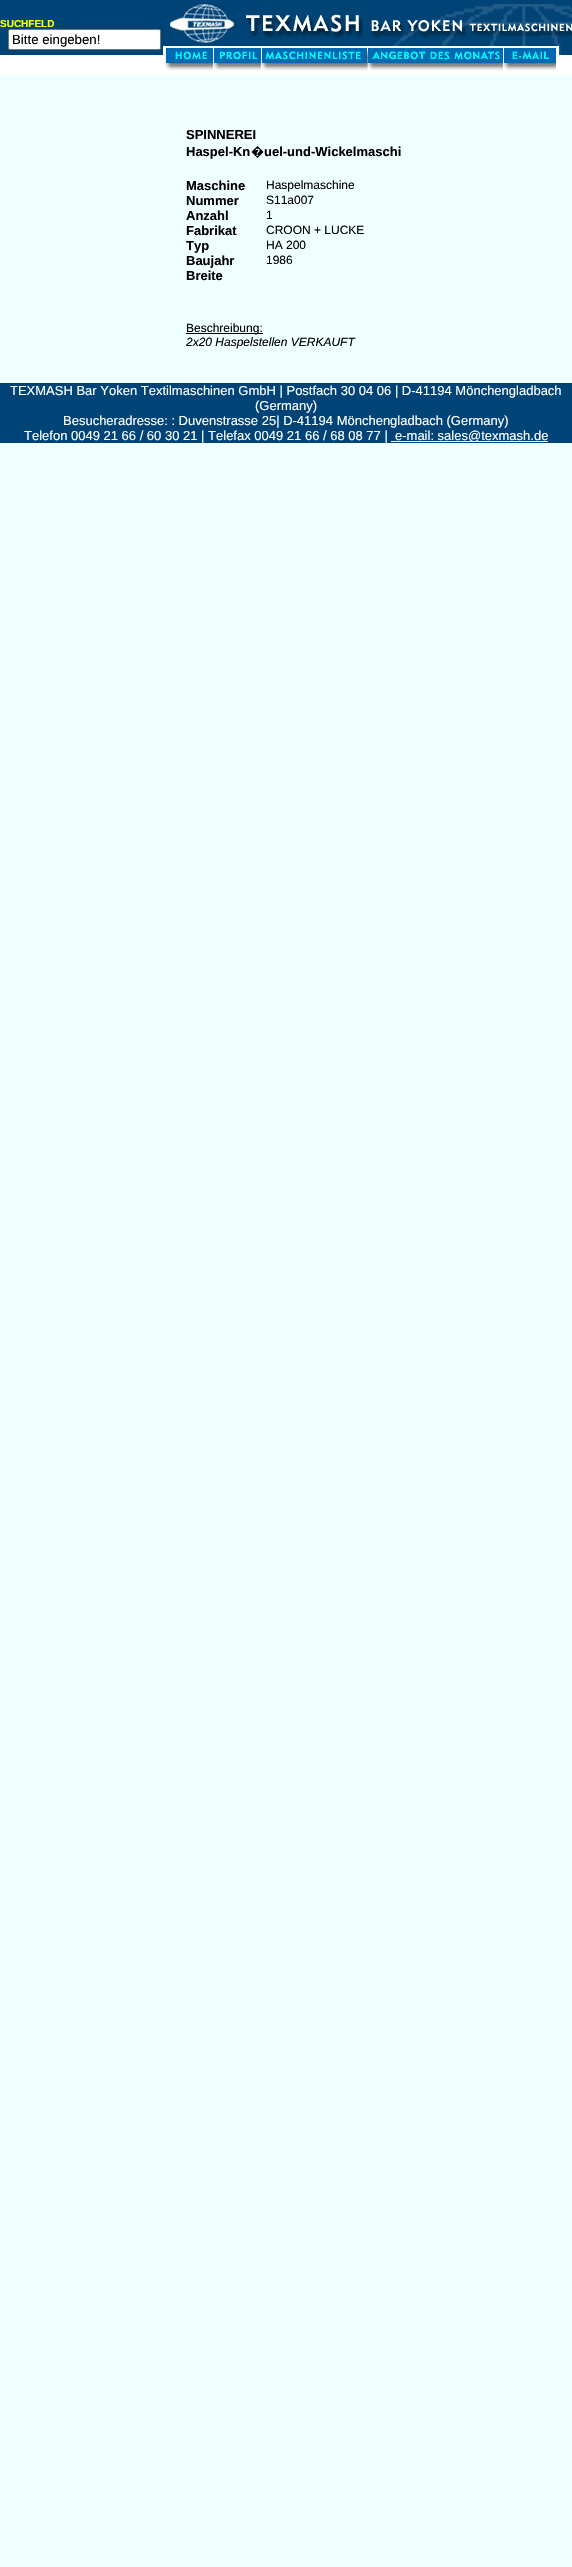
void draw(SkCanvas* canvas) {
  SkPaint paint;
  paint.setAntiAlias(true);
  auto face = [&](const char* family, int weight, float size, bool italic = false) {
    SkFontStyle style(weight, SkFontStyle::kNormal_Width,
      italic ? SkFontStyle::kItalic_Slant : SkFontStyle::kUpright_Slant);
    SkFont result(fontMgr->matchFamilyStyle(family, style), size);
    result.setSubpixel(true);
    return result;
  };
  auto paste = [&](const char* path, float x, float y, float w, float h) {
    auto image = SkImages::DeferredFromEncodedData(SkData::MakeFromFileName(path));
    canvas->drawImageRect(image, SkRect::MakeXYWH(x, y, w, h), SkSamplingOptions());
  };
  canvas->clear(0xfff0ffff);
  paste("img/1.png", 0, 0, 161, 75);
  paint.setColor(0xffffffff);
  canvas->drawRoundRect(SkRect::MakeXYWH(8.5f, 29.5f, 152, 20), 1.5f, 1.5f, paint);
  paint.setStroke(true);
  paint.setStrokeWidth(1);
  paint.setColor(0xff767676);
  canvas->drawRoundRect(SkRect::MakeXYWH(8.5f, 29.5f, 152, 20), 1.5f, 1.5f, paint);
  paste("img/2.png", 161, 0, 52, 75);
  paste("img/3.png", 213, 0, 48, 75);
  paste("img/4.png", 261, 0, 107, 75);
  paste("img/5.png", 368, 0, 135, 75);
  paste("img/6.png", 503, 0, 53, 75);
  paste("img/7.png", 556, 0, 16, 75);
  paint.setStroke(false);
  {
    const struct { float x, y, w, h; SkColor color; } items[] = {
      {186, 333, 77, 1, 0xff000000},
      {0, 383, 572, 60, 0xff004477},
      {391, 441, 157, 1, 0xffffffff},
    };
    for (auto [x, y, w, h, color] : items) {
      paint.setColor(color);
      canvas->drawRect(SkRect::MakeXYWH(x, y, w, h), paint);
    }
  }
  auto f0 = face("Liberation Sans", 700, 10);
  paint.setColor(0xffffff00);
  canvas->drawString("SUCHFELD", 0, 27, f0, paint);
  auto f1 = face("Liberation Sans", 400, 13.25f);
  paint.setColor(0xff000000);
  canvas->drawString("Bitte eingeben!", 12, 44, f1, paint);
  auto f2 = face("Liberation Sans", 700, 13);
  canvas->drawString("SPINNEREI", 186, 139, f2, paint);
  canvas->drawString("Haspel-Kn", 186, 156, f2, paint);
  auto f3 = face("Noto Sans", 700, 13);
  canvas->drawString("�", 251, 156, f3, paint);
  canvas->drawString("uel-und-Wickelmaschi", 264, 156, f2, paint);
  canvas->drawString("Maschine", 186, 190, f2, paint);
  auto f4 = face("Liberation Sans", 400, 12);
  canvas->drawString("Haspelmaschine", 266, 189, f4, paint);
  canvas->drawString("Nummer", 186, 205, f2, paint);
  canvas->drawString("S11a007", 266, 204, f4, paint);
  canvas->drawString("Anzahl", 186, 220, f2, paint);
  canvas->drawString("1", 266, 219, f4, paint);
  canvas->drawString("Fabrikat", 186, 235, f2, paint);
  canvas->drawString("CROON + LUCKE", 266, 234, f4, paint);
  canvas->drawString("Typ", 186, 250, f2, paint);
  canvas->drawString("HA 200", 266, 249, f4, paint);
  canvas->drawString("Baujahr", 186, 265, f2, paint);
  canvas->drawString("1986", 266, 264, f4, paint);
  canvas->drawString("Breite", 186, 280, f2, paint);
  canvas->drawString("Beschreibung:", 186, 332, f4, paint);
  auto f5 = face("Liberation Sans", 400, 12, true);
  canvas->drawString("2x20 Haspelstellen VERKAUFT", 186, 346, f5, paint);
  auto f6 = face("Liberation Sans", 400, 13);
  paint.setColor(0xffffffff);
  {
    const struct { const char* s; float x, y; } items[] = {
      {"TEXMASH Bar Yoken Textilmaschinen GmbH | Postfach 30 04 06 | D-41194 Mönchengladbach", 10, 395},
      {"(Germany)", 255, 410},
      {"Besucheradresse: : Duvenstrasse 25| D-41194 Mönchengladbach (Germany)", 63, 425},
      {"Telefon 0049 21 66 / 60 30 21 | Telefax 0049 21 66 / 68 08 77 |", 24, 440},
      {"e-mail: sales@texmash.de", 395, 440},
    };
    for (auto [s, x, y] : items) {
      canvas->drawString(s, x, y, f6, paint);
    }
  }
}
